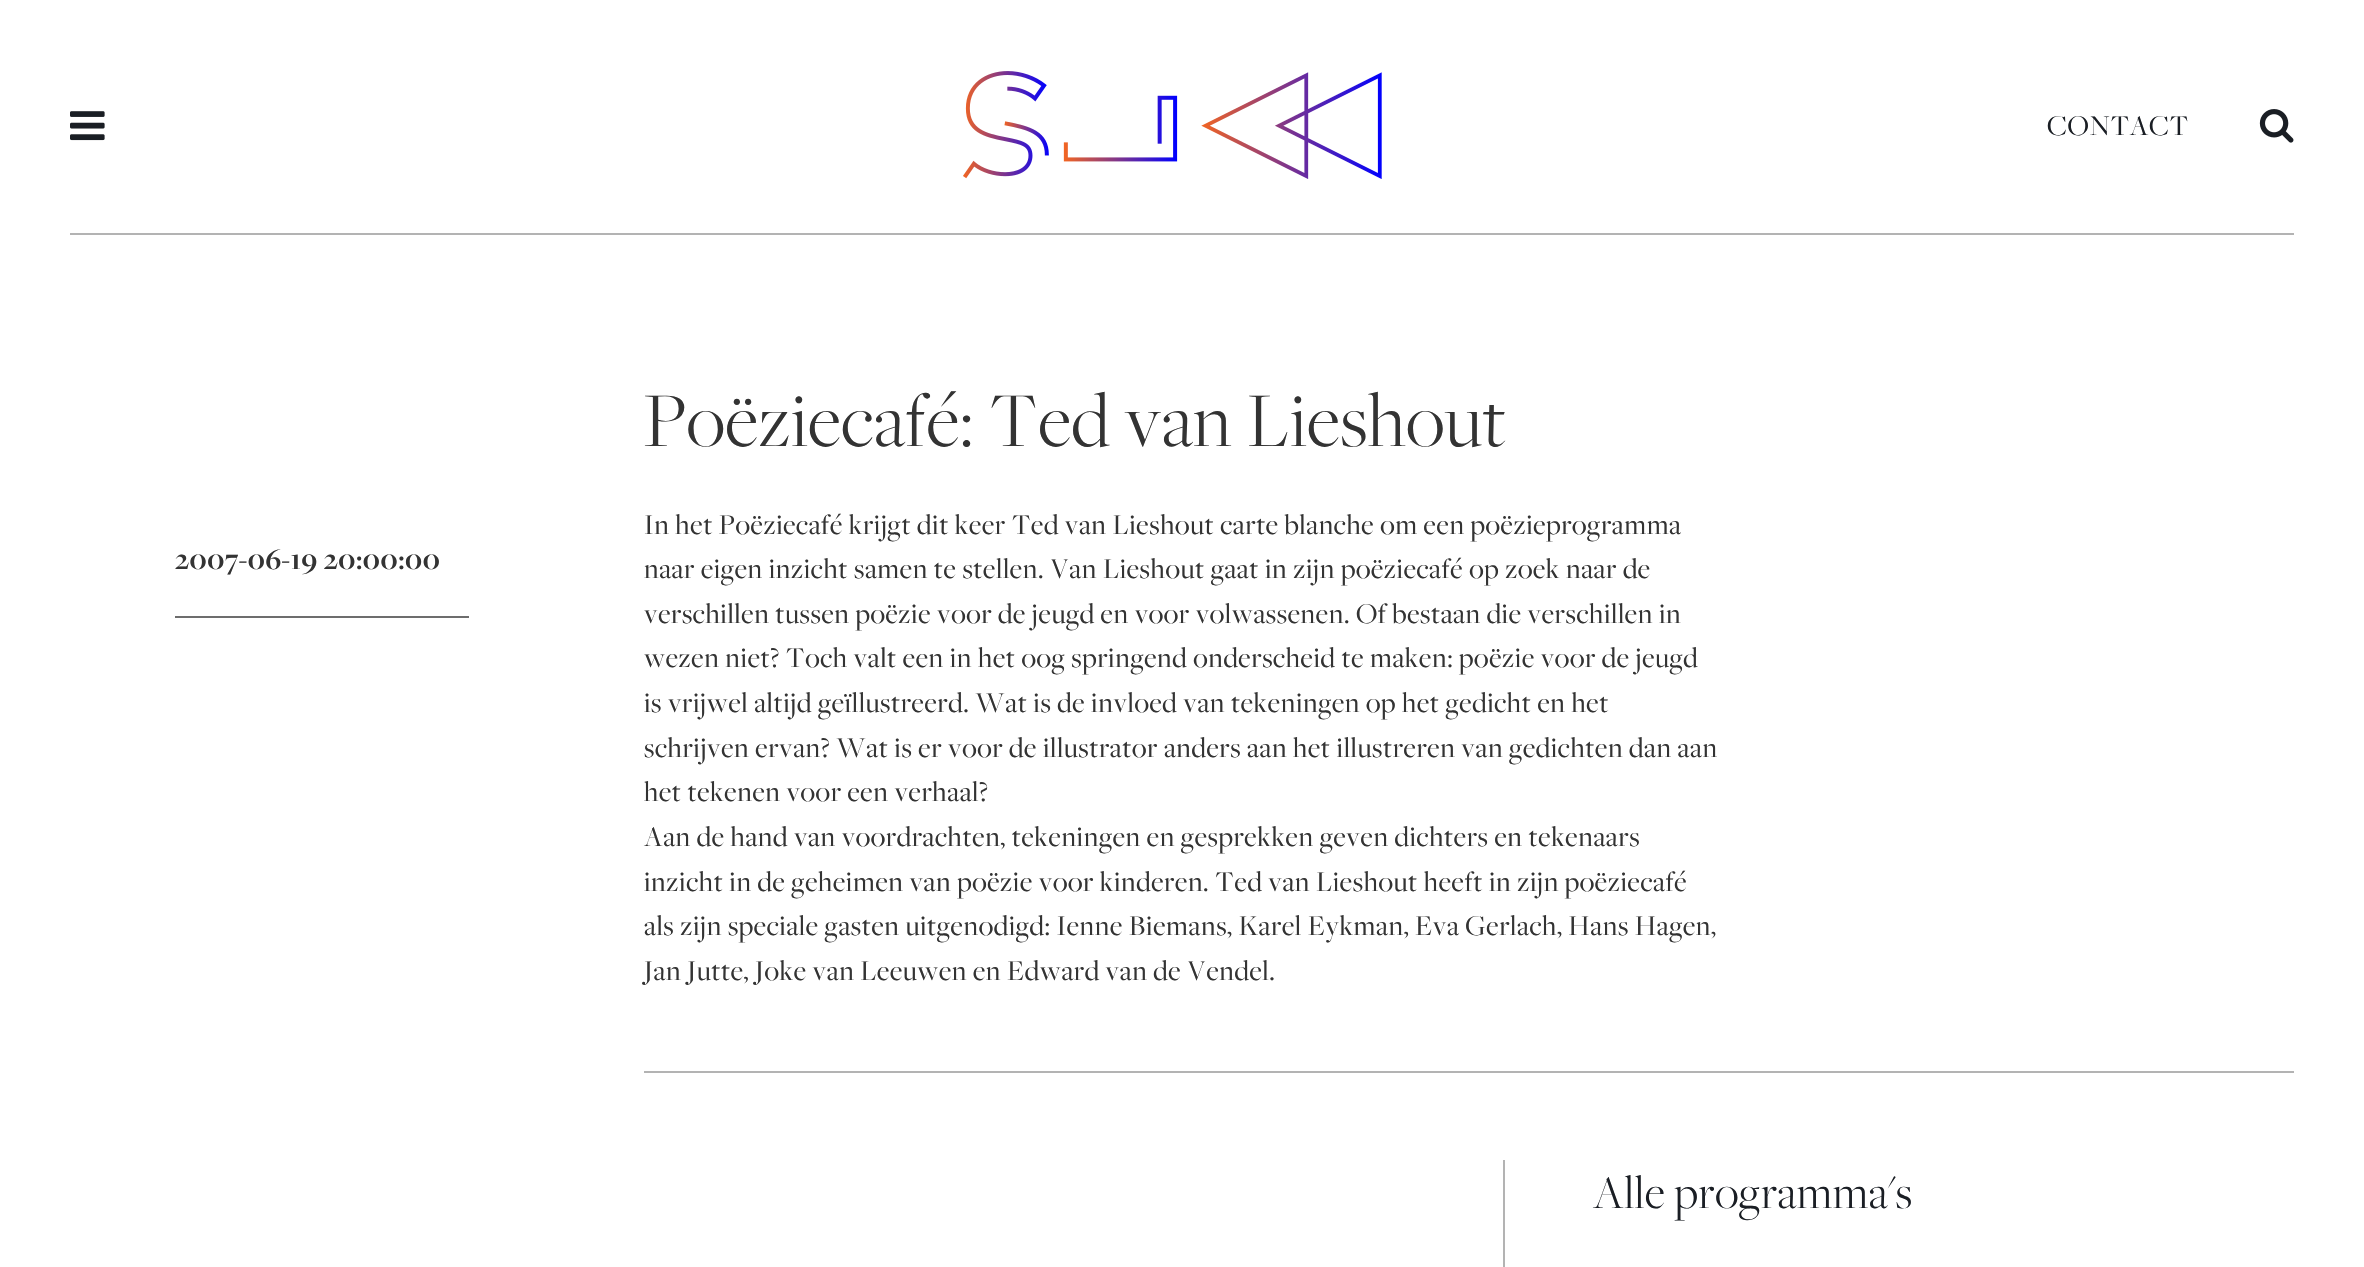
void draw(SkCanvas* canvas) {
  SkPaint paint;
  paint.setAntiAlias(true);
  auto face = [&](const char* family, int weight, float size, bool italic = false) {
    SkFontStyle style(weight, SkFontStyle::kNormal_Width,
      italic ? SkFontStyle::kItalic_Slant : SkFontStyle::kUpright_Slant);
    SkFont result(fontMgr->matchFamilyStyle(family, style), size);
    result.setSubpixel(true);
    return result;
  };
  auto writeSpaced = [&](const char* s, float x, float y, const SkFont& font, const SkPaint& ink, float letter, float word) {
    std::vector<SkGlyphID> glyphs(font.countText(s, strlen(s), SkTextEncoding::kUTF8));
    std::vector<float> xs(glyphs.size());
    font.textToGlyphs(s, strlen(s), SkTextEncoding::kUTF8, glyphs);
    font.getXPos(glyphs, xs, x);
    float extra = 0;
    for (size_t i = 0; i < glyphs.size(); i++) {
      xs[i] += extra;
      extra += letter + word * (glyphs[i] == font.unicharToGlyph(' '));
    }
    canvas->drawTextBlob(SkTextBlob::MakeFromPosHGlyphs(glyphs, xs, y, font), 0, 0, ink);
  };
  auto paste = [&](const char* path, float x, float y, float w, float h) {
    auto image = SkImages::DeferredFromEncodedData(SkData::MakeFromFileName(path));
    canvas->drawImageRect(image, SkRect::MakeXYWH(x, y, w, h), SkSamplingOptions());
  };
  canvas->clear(0xffffffff);
  paint.setColor(0xffb3b3b3);
  canvas->drawRect(SkRect::MakeXYWH(70, 233, 2224, 2), paint);
  paste("img/1.png", 70, 111, 35, 30);
  paste("img/2.png", 963, 71, 419, 108);
  paste("img/3.png", 2259, 109, 35, 34);
  {
    const struct { float x, y, w, h; SkColor color; } items[] = {
      {175, 616, 294, 2, 0xff6d6d6d},
      {644, 1071, 1650, 2, 0xffb3b3b3},
      {1503, 1160, 2, 107, 0xffb3b3b3},
    };
    for (auto [x, y, w, h, color] : items) {
      paint.setColor(color);
      canvas->drawRect(SkRect::MakeXYWH(x, y, w, h), paint);
    }
  }
  auto f0 = face("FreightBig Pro", 400, 29.75f);
  paint.setColor(0xff1a1e24);
  writeSpaced("CONTACT", 2047, 135, f0, paint, 0.6f, 0);
  auto f1 = face("FreightBig Pro", 300, 80.5f);
  paint.setColor(0xff333333);
  writeSpaced("Poëziecafé: Ted van Lieshout", 644, 446, f1, paint, 0.6f, 0);
  auto f2 = face("FreightBig Pro", 700, 29.75f);
  writeSpaced("2007-06-19 20:00:00", 175, 569, f2, paint, 0.6f, 0);
  {
    const struct { const char* s; float x, y; } items[] = {
      {"In het Poëziecafé krijgt dit keer Ted van Lieshout carte blanche om een poëzieprogramma", 644, 534},
      {"naar eigen inzicht samen te stellen. Van Lieshout gaat in zijn poëziecafé op zoek naar de", 644, 578},
      {"verschillen tussen poëzie voor de jeugd en voor volwassenen. Of bestaan die verschillen in", 644, 623},
      {"wezen niet? Toch valt een in het oog springend onderscheid te maken: poëzie voor de jeugd", 644, 667},
      {"is vrijwel altijd geïllustreerd. Wat is de invloed van tekeningen op het gedicht en het", 644, 712},
      {"schrijven ervan? Wat is er voor de illustrator anders aan het illustreren van gedichten dan aan", 644, 757},
      {"het tekenen voor een verhaal?", 644, 801},
      {"Aan de hand van voordrachten, tekeningen en gesprekken geven dichters en tekenaars", 644, 846},
      {"inzicht in de geheimen van poëzie voor kinderen. Ted van Lieshout heeft in zijn poëziecafé", 644, 891},
      {"als zijn speciale gasten uitgenodigd: Ienne Biemans, Karel Eykman, Eva Gerlach, Hans Hagen,", 644, 935},
      {"Jan Jutte, Joke van Leeuwen en Edward van de Vendel.", 644, 980},
    };
    for (auto [s, x, y] : items) {
      writeSpaced(s, x, y, f0, paint, 0.6f, 0);
    }
  }
  auto f3 = face("FreightBig Pro", 300, 49);
  paint.setColor(0xff1a1e24);
  writeSpaced("Alle programma's", 1593, 1208, f3, paint, 0.6f, 0);
}
